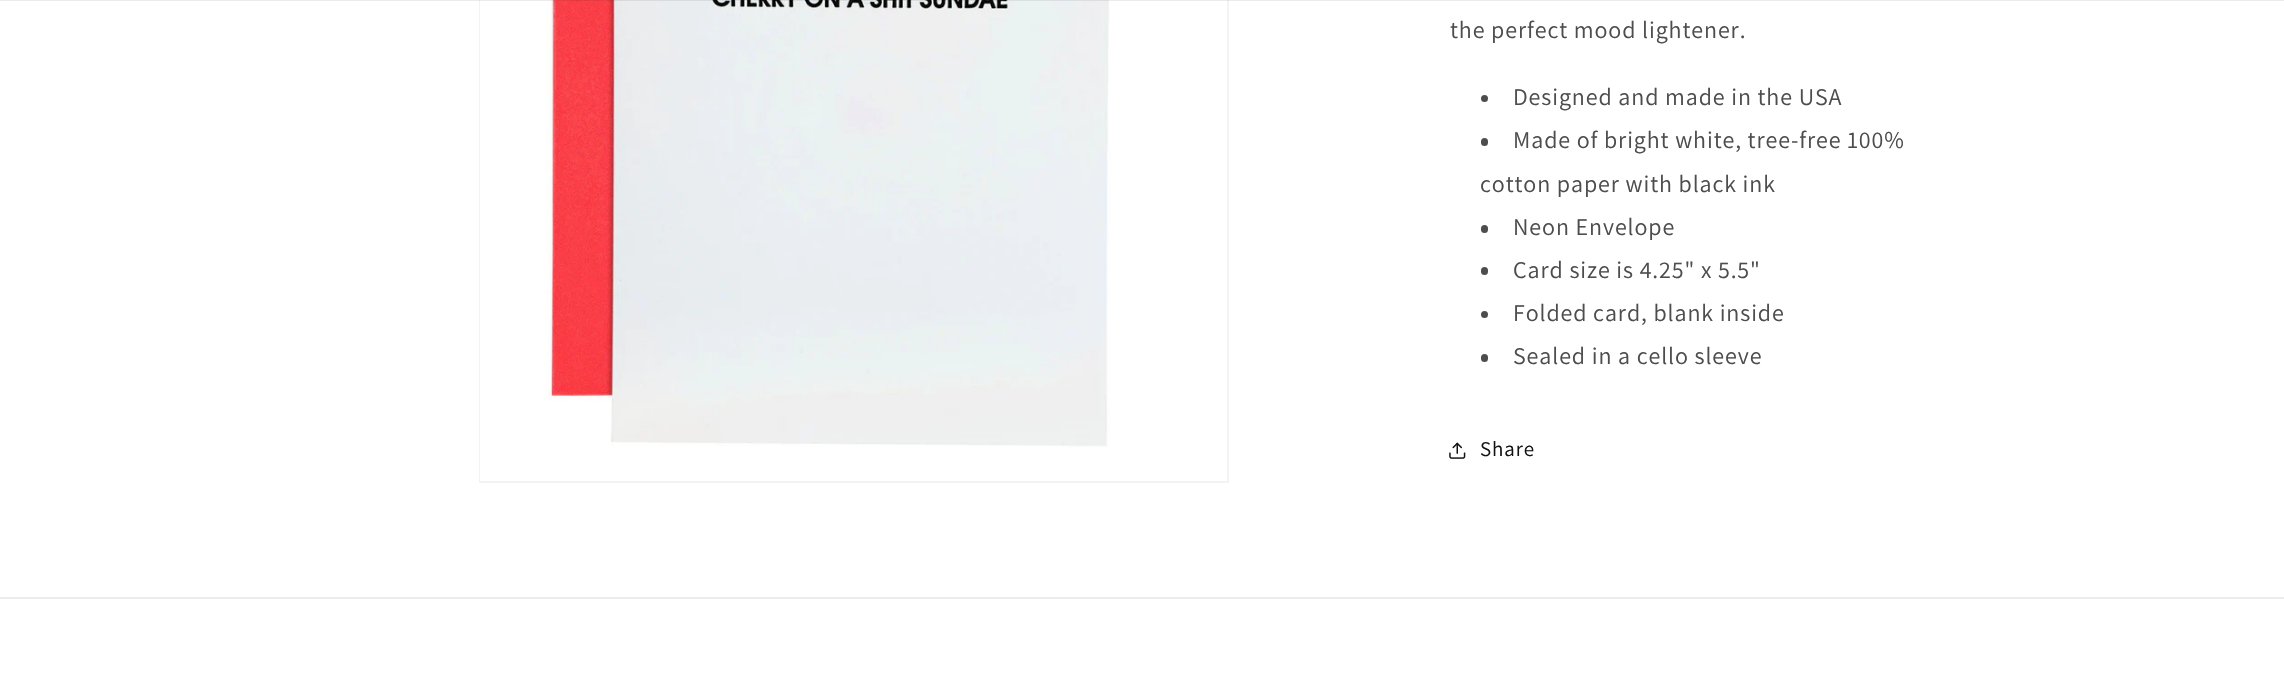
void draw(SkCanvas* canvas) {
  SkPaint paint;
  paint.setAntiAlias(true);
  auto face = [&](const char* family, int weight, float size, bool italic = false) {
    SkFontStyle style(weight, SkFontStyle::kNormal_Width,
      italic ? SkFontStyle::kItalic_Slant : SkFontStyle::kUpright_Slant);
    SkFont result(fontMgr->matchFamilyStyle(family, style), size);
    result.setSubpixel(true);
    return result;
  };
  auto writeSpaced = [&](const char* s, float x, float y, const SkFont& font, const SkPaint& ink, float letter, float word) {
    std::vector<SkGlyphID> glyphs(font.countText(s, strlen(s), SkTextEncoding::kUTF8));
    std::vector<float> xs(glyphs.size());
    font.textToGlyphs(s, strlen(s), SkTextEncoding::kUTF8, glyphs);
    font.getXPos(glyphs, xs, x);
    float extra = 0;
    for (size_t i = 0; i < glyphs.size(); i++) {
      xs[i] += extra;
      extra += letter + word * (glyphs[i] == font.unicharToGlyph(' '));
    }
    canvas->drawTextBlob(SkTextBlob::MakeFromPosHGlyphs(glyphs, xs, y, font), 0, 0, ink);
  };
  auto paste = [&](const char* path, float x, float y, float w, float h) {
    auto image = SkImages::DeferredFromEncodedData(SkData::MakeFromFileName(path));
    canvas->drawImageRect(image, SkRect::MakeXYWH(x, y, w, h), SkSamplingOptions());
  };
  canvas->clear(0xffffffff);
  paint.setStroke(true);
  paint.setStrokeWidth(2);
  paint.setColor(0xfff3f3f3);
  canvas->drawRect(SkRect::MakeXYWH(480, -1, 748, 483), paint);
  paste("img/1.png", 480, 0, 630, 481);
  paint.setStroke(false);
  paint.setColor(0x14121212);
  canvas->drawRect(SkRect::MakeXYWH(0, 0, 2284, 1), paint);
  paint.setColor(0xff4d4d4d);
  canvas->drawCircle(1484.5f, 98.5f, 3.5f, paint);
  canvas->drawRoundRect(SkRect::MakeXYWH(1481, 138, 7, 8), 3.5f, 3.5f, paint);
  canvas->drawRoundRect(SkRect::MakeXYWH(1481, 225, 7, 8), 3.5f, 3.5f, paint);
  canvas->drawRoundRect(SkRect::MakeXYWH(1481, 267, 7, 8), 3.5f, 3.5f, paint);
  canvas->drawCircle(1484.5f, 314.5f, 3.5f, paint);
  canvas->drawRoundRect(SkRect::MakeXYWH(1481, 354, 7, 8), 3.5f, 3.5f, paint);
  paste("img/2.png", 1449, 442, 17, 17);
  paint.setColor(0xffececec);
  canvas->drawRect(SkRect::MakeXYWH(0, 597, 2284, 2), paint);
  auto f0 = face("Assistant", 400, 24);
  paint.setColor(0xff4d4d4d);
  {
    const struct { const char* s; float x, y; } items[] = {
      {"the perfect mood lightener.", 1450, 38},
      {"Designed and made in the USA", 1513, 105},
      {"Made of bright white, tree-free 100%", 1513, 148},
      {"cotton paper with black ink", 1480, 192},
      {"Neon Envelope", 1513, 235},
      {"Card size is 4.25\" x 5.5\"", 1513, 278},
      {"Folded card, blank inside", 1513, 321},
      {"Sealed in a cello sleeve", 1513, 364},
    };
    for (auto [s, x, y] : items) {
      writeSpaced(s, x, y, f0, paint, 0.9f, 0);
    }
  }
  auto f1 = face("Assistant", 400, 21);
  paint.setColor(0xff121212);
  writeSpaced("Share", 1480, 456, f1, paint, 0.9f, 0);
}
